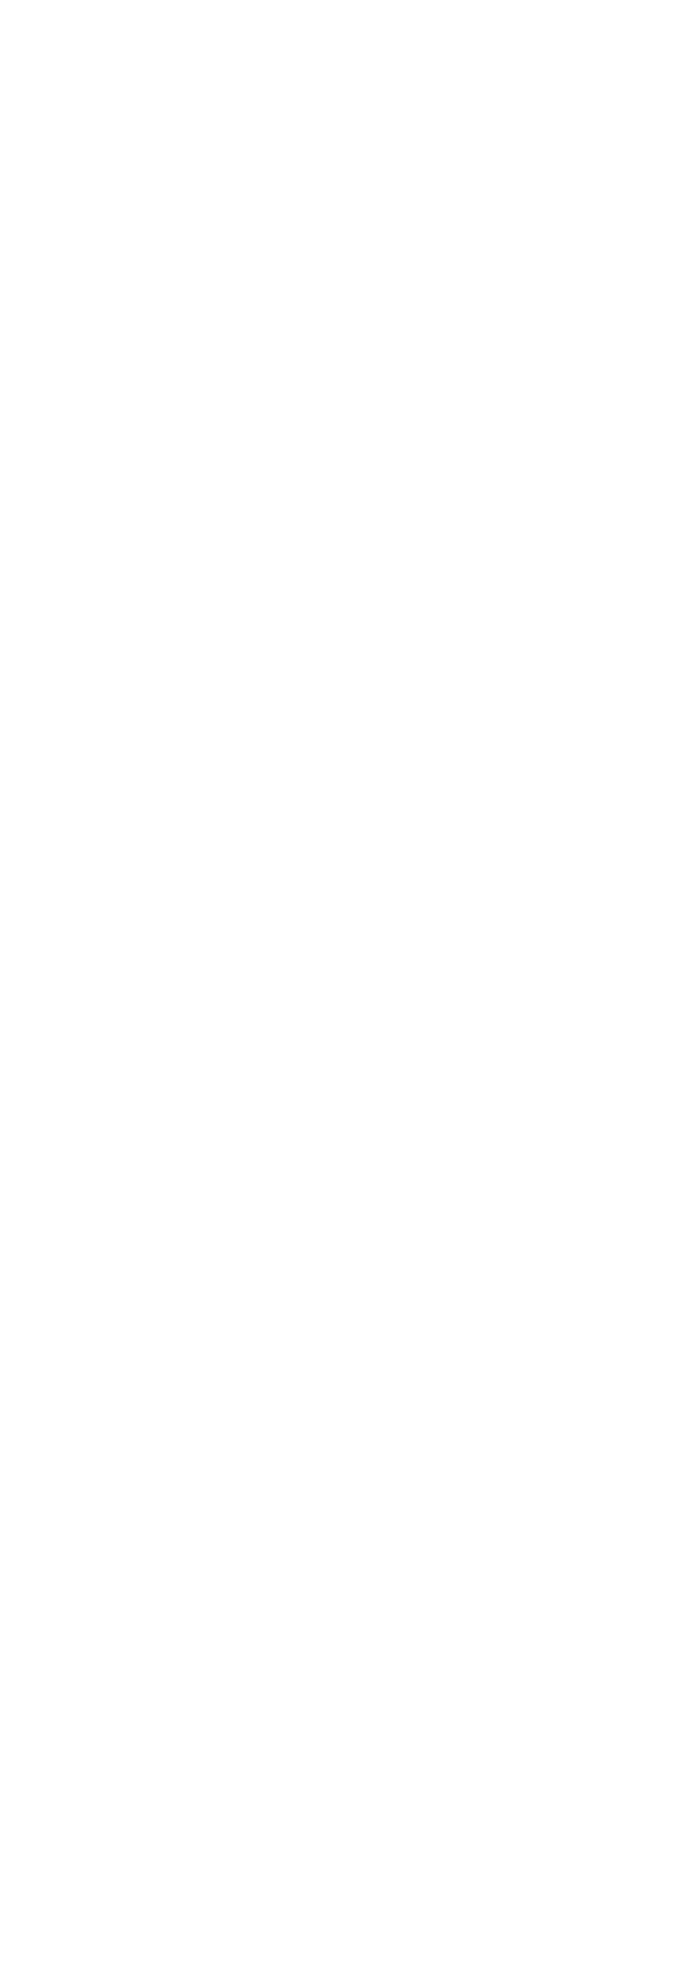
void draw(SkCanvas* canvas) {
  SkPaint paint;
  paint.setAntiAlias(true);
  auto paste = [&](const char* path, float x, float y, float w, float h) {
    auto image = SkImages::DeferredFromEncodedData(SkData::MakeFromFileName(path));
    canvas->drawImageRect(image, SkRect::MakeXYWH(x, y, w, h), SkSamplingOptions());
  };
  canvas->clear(0xffffffff);
  paste("img/1.png", 115, 13, 23, 16);
  paste("img/1.png", 145, 13, 23, 16);
  paste("img/2.png", 115, 40, 23, 15);
  paste("img/3.png", 572, 16, 38, 31);
  paste("img/5.png", 86, 341, 1, 217);
  paste("img/4.png", 86, 276, 525, 506);
  paste("img/6.png", 116, 521, 9, 13);
  paste("img/7.png", 571, 521, 8, 13);
  paste("img/8.png", 562, 1352, 17, 18);
  paste("img/9.png", 339, 1599, 10, 23);
}
